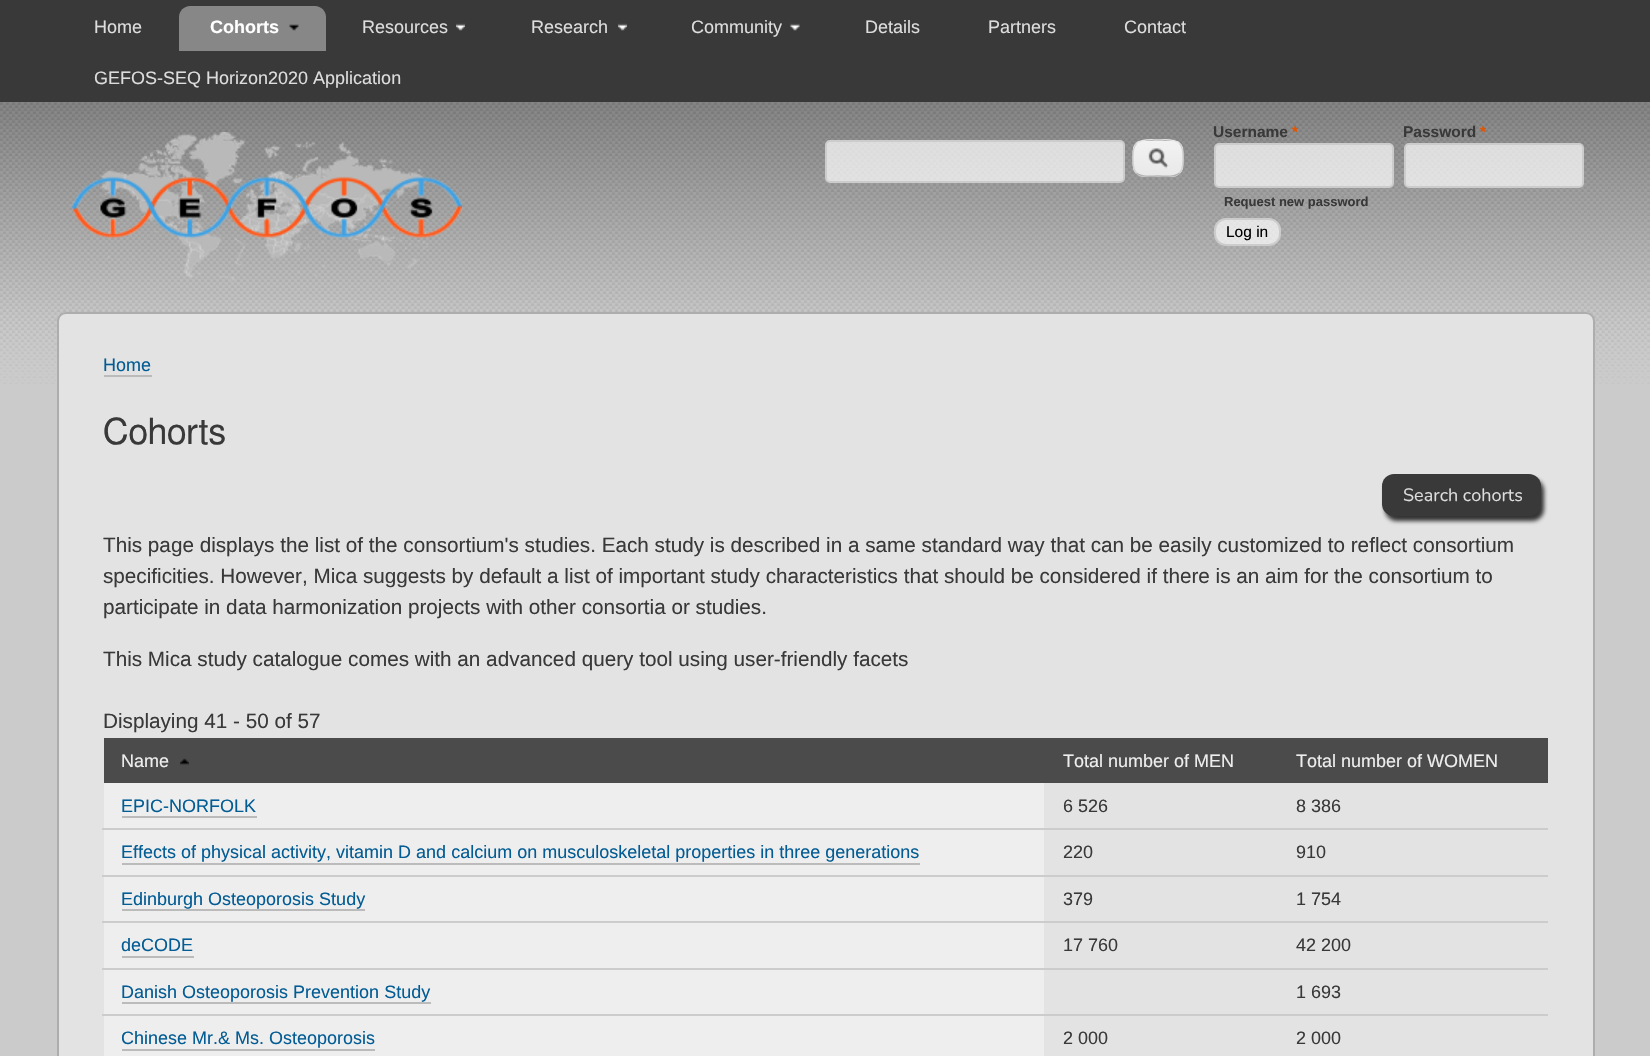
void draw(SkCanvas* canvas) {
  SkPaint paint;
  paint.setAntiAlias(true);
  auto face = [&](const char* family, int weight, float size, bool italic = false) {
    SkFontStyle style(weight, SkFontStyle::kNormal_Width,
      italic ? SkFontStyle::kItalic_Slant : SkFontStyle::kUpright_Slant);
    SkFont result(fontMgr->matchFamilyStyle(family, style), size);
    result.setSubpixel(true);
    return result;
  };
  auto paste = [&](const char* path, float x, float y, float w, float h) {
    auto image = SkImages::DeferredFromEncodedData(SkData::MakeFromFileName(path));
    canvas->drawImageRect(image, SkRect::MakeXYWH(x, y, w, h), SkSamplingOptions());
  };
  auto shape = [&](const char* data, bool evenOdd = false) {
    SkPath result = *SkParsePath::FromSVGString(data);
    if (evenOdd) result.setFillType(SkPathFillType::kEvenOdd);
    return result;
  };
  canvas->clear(0xffcbcbcb);
  paste("img/1.png", 0, 102, 1650, 282);
  paint.setColor(0xff393939);
  canvas->drawRect(SkRect::MakeXYWH(0, 0, 1650, 102), paint);
  paint.setColor(0xff878787);
  canvas->drawPath(shape("M190 6H315C321 6 326 11 326 17V51H179V17C179 11 184 6 190 6Z"), paint);
  paste("img/2.png", 289, 24, 10, 7);
  paste("img/3.png", 456, 23, 9, 8);
  paste("img/4.png", 618, 23, 9, 8);
  paste("img/5.png", 790, 23, 10, 8);
  paste("img/6.png", 72, 132, 390, 150);
  paint.setColor(0xb3ffffff);
  canvas->drawRoundRect(SkRect::MakeXYWH(826, 141, 298, 41), 4, 4, paint);
  paint.setStroke(true);
  paint.setStrokeWidth(2);
  paint.setColor(0xffcccccc);
  canvas->drawRoundRect(SkRect::MakeXYWH(826, 141, 298, 41), 4, 4, paint);
  paste("img/7.png", 1132, 141, 52, 36);
  paint.setStrokeWidth(1.5f);
  paint.setColor(0xffe4e4e4);
  canvas->drawPath(shape("M1136.5 143.5C1141.5 138.5 1151.5 140 1158 140C1164.5 140 1174.5 138.5 1179.5 143.5"), paint);
  paint.setColor(0xffd2d2d2);
  canvas->drawPath(shape("M1179.5 143.5C1183.5 147.5 1183 153 1183 158C1183 163.5 1183.5 169 1179.5 173"), paint);
  paint.setColor(0xffb4b4b4);
  canvas->drawPath(shape("M1179.5 173C1174.5 178 1164.5 176 1158 176C1151.5 176 1141.5 178 1136.5 173"), paint);
  paint.setColor(0xffd2d2d2);
  canvas->drawPath(shape("M1136.5 173C1132.5 169 1133 163.5 1133 158C1133 153 1132.5 147.5 1136.5 143.5"), paint);
  paint.setStroke(false);
  paint.setColor(0xb3ffffff);
  canvas->drawRoundRect(SkRect::MakeXYWH(1215, 144, 178, 43), 4, 4, paint);
  paint.setStroke(true);
  paint.setStrokeWidth(2);
  paint.setColor(0xffcccccc);
  canvas->drawRoundRect(SkRect::MakeXYWH(1215, 144, 178, 43), 4, 4, paint);
  paint.setStroke(false);
  paint.setColor(0xb3ffffff);
  canvas->drawRoundRect(SkRect::MakeXYWH(1405, 144, 178, 43), 4, 4, paint);
  paint.setStroke(true);
  paint.setColor(0xffcccccc);
  canvas->drawRoundRect(SkRect::MakeXYWH(1405, 144, 178, 43), 4, 4, paint);
  paint.setStroke(false);
  paint.setColor(0xb3ffffff);
  canvas->drawRoundRect(SkRect::MakeXYWH(1215, 219, 65, 26), 11, 11, paint);
  paint.setStroke(true);
  paint.setColor(0xffcccccc);
  canvas->drawRoundRect(SkRect::MakeXYWH(1215, 219, 65, 26), 11, 11, paint);
  paint.setStroke(false);
  paint.setColor(0xffe3e3e3);
  canvas->drawRoundRect(SkRect::MakeXYWH(58, 313, 1536, 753), 8, 8, paint);
  paint.setStroke(true);
  paint.setColor(0xffadadad);
  canvas->drawRoundRect(SkRect::MakeXYWH(58, 313, 1536, 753), 8, 8, paint);
  paint.setStroke(false);
  paint.setColor(0xffbbbbbb);
  canvas->drawRect(SkRect::MakeXYWH(104, 375, 48, 2), paint);
  paint.setColor(0xff333333);
  paint.setMaskFilter(SkMaskFilter::MakeBlur(kNormal_SkBlurStyle, 2));
  canvas->drawRoundRect(SkRect::MakeXYWH(1385, 479, 159, 42), 12, 12, paint);
  paint.setMaskFilter(nullptr);
  paint.setColor(0xff393939);
  canvas->drawRoundRect(SkRect::MakeXYWH(1382, 474, 159, 42), 12, 12, paint);
  paint.setColor(0xff4b4b4b);
  canvas->drawRect(SkRect::MakeXYWH(104, 738, 1444, 45), paint);
  paste("img/8.png", 180, 758, 9, 7);
  {
    const struct { float x, y, w, h; SkColor color; } items[] = {
      {102, 828, 1446, 2, 0xffcccccc},
      {104, 783, 940, 45, 0xffeeeeee},
      {122, 816, 135, 2, 0xffbbbbbb},
      {102, 875, 1446, 2, 0xffcccccc},
      {104, 830, 940, 45, 0xffeeeeee},
      {122, 863, 798, 2, 0xffbbbbbb},
      {102, 921, 1446, 2, 0xffcccccc},
      {104, 877, 940, 44, 0xffeeeeee},
      {122, 909, 243, 2, 0xffbbbbbb},
      {102, 968, 1446, 2, 0xffcccccc},
      {104, 923, 940, 45, 0xffeeeeee},
      {122, 956, 72, 2, 0xffbbbbbb},
      {102, 1014, 1446, 2, 0xffcccccc},
      {104, 970, 940, 44, 0xffeeeeee},
      {122, 1002, 309, 2, 0xffbbbbbb},
      {104, 1016, 940, 40, 0xffeeeeee},
      {122, 1049, 253, 2, 0xffbbbbbb},
    };
    for (auto [x, y, w, h, color] : items) {
      paint.setColor(color);
      canvas->drawRect(SkRect::MakeXYWH(x, y, w, h), paint);
    }
  }
  auto f0 = face("Liberation Sans", 400, 18);
  paint.setColor(0xffdddddd);
  canvas->drawString("Home", 94, 33, f0, paint);
  auto f1 = face("Liberation Sans", 700, 18);
  paint.setColor(0xffffffff);
  canvas->drawString("Cohorts", 210, 33, f1, paint);
  paint.setColor(0xffdddddd);
  {
    const struct { const char* s; float x, y; } items[] = {
      {"Resources", 362, 33},
      {"Research", 531, 33},
      {"Community", 691, 33},
      {"Details", 865, 33},
      {"Partners", 988, 33},
      {"Contact", 1124, 33},
      {"GEFOS-SEQ Horizon2020 Application", 94, 84},
    };
    for (auto [s, x, y] : items) {
      canvas->drawString(s, x, y, f0, paint);
    }
  }
  auto f2 = face("Liberation Sans", 700, 15.5f);
  paint.setColor(0xff393939);
  canvas->drawString("Username", 1213, 137, f2, paint);
  paint.setColor(0xffe25401);
  canvas->drawString("*", 1292, 137, f2, paint);
  paint.setColor(0xff393939);
  canvas->drawString("Password", 1403, 137, f2, paint);
  paint.setColor(0xffe25401);
  canvas->drawString("*", 1480, 137, f2, paint);
  auto f3 = face("Liberation Sans", 700, 13);
  paint.setColor(0xff393939);
  canvas->drawString("Request new password", 1224, 206, f3, paint);
  auto f4 = face("Liberation Sans", 400, 15.5f);
  paint.setColor(0xff000000);
  canvas->drawString("Log in", 1226, 237, f4, paint);
  paint.setColor(0xff035c94);
  canvas->drawString("Home", 103, 371, f0, paint);
  auto f5 = face("FreeSans", 400, 36);
  paint.setColor(0xff393939);
  canvas->drawString("Cohorts", 103, 444, f5, paint);
  auto f6 = face("Nunito", 200, 18);
  paint.setColor(0xffdddddd);
  canvas->drawString("Search cohorts", 1403, 501, f6, paint);
  auto f7 = face("Liberation Sans", 400, 20.7f);
  paint.setColor(0xff393939);
  {
    const struct { const char* s; float x, y; } items[] = {
      {"This page displays the list of the consortium's studies. Each study is described in a same standard way that can be easily customized to reflect consortium", 103, 552},
      {"specificities. However, Mica suggests by default a list of important study characteristics that should be considered if there is an aim for the consortium to", 103, 583},
      {"participate in data harmonization projects with other consortia or studies.", 103, 614},
      {"This Mica study catalogue comes with an advanced query tool using user-friendly facets", 103, 666},
      {"Displaying 41 - 50 of 57", 103, 728},
    };
    for (auto [s, x, y] : items) {
      canvas->drawString(s, x, y, f7, paint);
    }
  }
  paint.setColor(0xffeeeeee);
  {
    const struct { const char* s; float x, y; } items[] = {
      {"Name", 121, 767},
      {"Total number of MEN", 1063, 767},
      {"Total number of WOMEN", 1296, 767},
    };
    for (auto [s, x, y] : items) {
      canvas->drawString(s, x, y, f0, paint);
    }
  }
  paint.setColor(0xff035c94);
  canvas->drawString("EPIC-NORFOLK", 121, 812, f0, paint);
  paint.setColor(0xff393939);
  canvas->drawString("6 526", 1063, 812, f0, paint);
  canvas->drawString("8 386", 1296, 812, f0, paint);
  paint.setColor(0xff035c94);
  canvas->drawString("Effects of physical activity, vitamin D and calcium on musculoskeletal properties in three generations", 121, 858, f0, paint);
  paint.setColor(0xff393939);
  canvas->drawString("220", 1063, 858, f0, paint);
  canvas->drawString("910", 1296, 858, f0, paint);
  paint.setColor(0xff035c94);
  canvas->drawString("Edinburgh Osteoporosis Study", 121, 905, f0, paint);
  paint.setColor(0xff393939);
  canvas->drawString("379", 1063, 905, f0, paint);
  canvas->drawString("1 754", 1296, 905, f0, paint);
  paint.setColor(0xff035c94);
  canvas->drawString("deCODE", 121, 951, f0, paint);
  paint.setColor(0xff393939);
  canvas->drawString("17 760", 1063, 951, f0, paint);
  canvas->drawString("42 200", 1296, 951, f0, paint);
  paint.setColor(0xff035c94);
  canvas->drawString("Danish Osteoporosis Prevention Study", 121, 998, f0, paint);
  paint.setColor(0xff393939);
  canvas->drawString("1 693", 1296, 998, f0, paint);
  paint.setColor(0xff035c94);
  canvas->drawString("Chinese Mr.& Ms. Osteoporosis", 121, 1044, f0, paint);
  paint.setColor(0xff393939);
  canvas->drawString("2 000", 1063, 1044, f0, paint);
  canvas->drawString("2 000", 1296, 1044, f0, paint);
}
